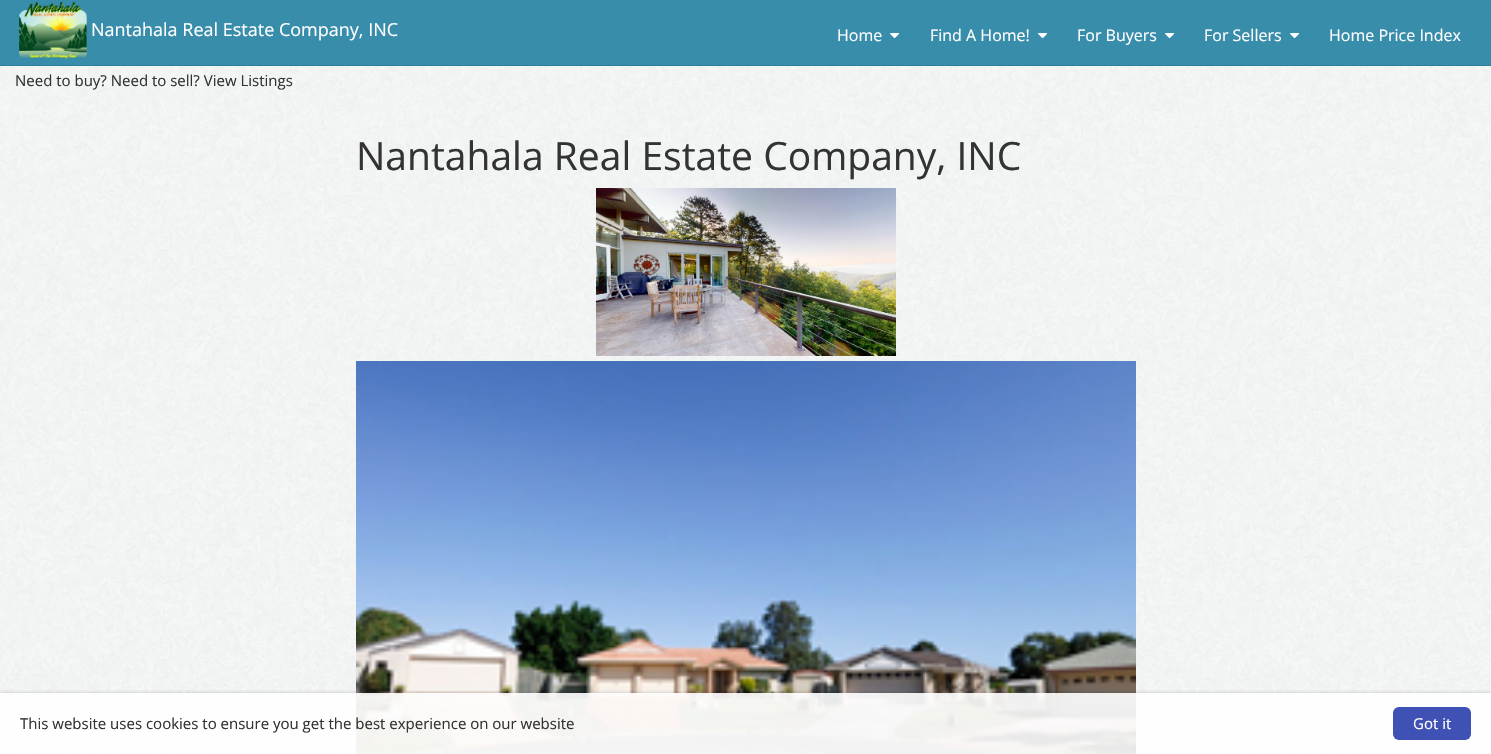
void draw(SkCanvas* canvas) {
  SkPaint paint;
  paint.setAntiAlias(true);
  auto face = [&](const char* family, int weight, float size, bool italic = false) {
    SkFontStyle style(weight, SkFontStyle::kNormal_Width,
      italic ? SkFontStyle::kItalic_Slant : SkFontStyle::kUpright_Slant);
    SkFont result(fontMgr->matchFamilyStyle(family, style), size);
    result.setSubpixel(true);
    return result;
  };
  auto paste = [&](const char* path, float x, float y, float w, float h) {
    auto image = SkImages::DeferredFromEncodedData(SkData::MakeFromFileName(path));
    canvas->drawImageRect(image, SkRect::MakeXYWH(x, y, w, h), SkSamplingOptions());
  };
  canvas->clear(0xffffffff);
  paste("img/1.png", 0, 66, 1491, 688);
  paint.setColor(0xff388daa);
  canvas->drawRect(SkRect::MakeXYWH(0, 0, 1491, 65), paint);
  paint.setColor(0xff297e9b);
  canvas->drawRect(SkRect::MakeXYWH(0, 65, 1491, 1), paint);
  paste("img/2.png", 19, 2, 68, 58);
  paste("img/3.png", 890, 33, 10, 6);
  paste("img/3.png", 1038, 33, 10, 6);
  paste("img/3.png", 1165, 33, 10, 6);
  paste("img/3.png", 1290, 33, 10, 6);
  paste("img/4.png", 596, 188, 300, 168);
  paste("img/5.png", 356, 361, 780, 393);
  canvas->save();
  canvas->clipRect(SkRect::MakeXYWH(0, 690, 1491, 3));
  paint.setColor(0x33000000);
  paint.setMaskFilter(SkMaskFilter::MakeBlur(kNormal_SkBlurStyle, 2));
  canvas->drawRect(SkRect::MakeXYWH(0, 693, 1491, 61), paint);
  paint.setMaskFilter(nullptr);
  canvas->restore();
  paint.setColor(0xe6ffffff);
  canvas->drawRect(SkRect::MakeXYWH(0, 693, 1491, 61), paint);
  paint.setColor(0xff3f51b5);
  canvas->drawRoundRect(SkRect::MakeXYWH(1393, 707, 78, 33), 6, 6, paint);
  auto f0 = face("Open Sans", 400, 18);
  paint.setColor(0xffffffff);
  canvas->drawString("Nantahala Real Estate Company, INC", 91, 36, f0, paint);
  auto f1 = face("Open Sans", 400, 16);
  {
    const struct { const char* s; float x, y; } items[] = {
      {"Home", 837, 41},
      {"Find A Home!", 930, 41},
      {"For Buyers", 1077, 41},
      {"For Sellers", 1204, 41},
      {"Home Price Index", 1329, 41},
    };
    for (auto [s, x, y] : items) {
      canvas->drawString(s, x, y, f1, paint);
    }
  }
  auto f2 = face("Open Sans", 400, 15);
  paint.setColor(0xff333333);
  canvas->drawString("Need to buy? Need to sell? View Listings", 15, 86, f2, paint);
  auto f3 = face("Open Sans", 400, 39);
  canvas->drawString("Nantahala Real Estate Company, INC", 356, 170, f3, paint);
  canvas->drawString("This website uses cookies to ensure you get the best experience on our website", 20, 729, f2, paint);
  paint.setColor(0xffffffff);
  canvas->drawString("Got it", 1413, 729, f2, paint);
}
